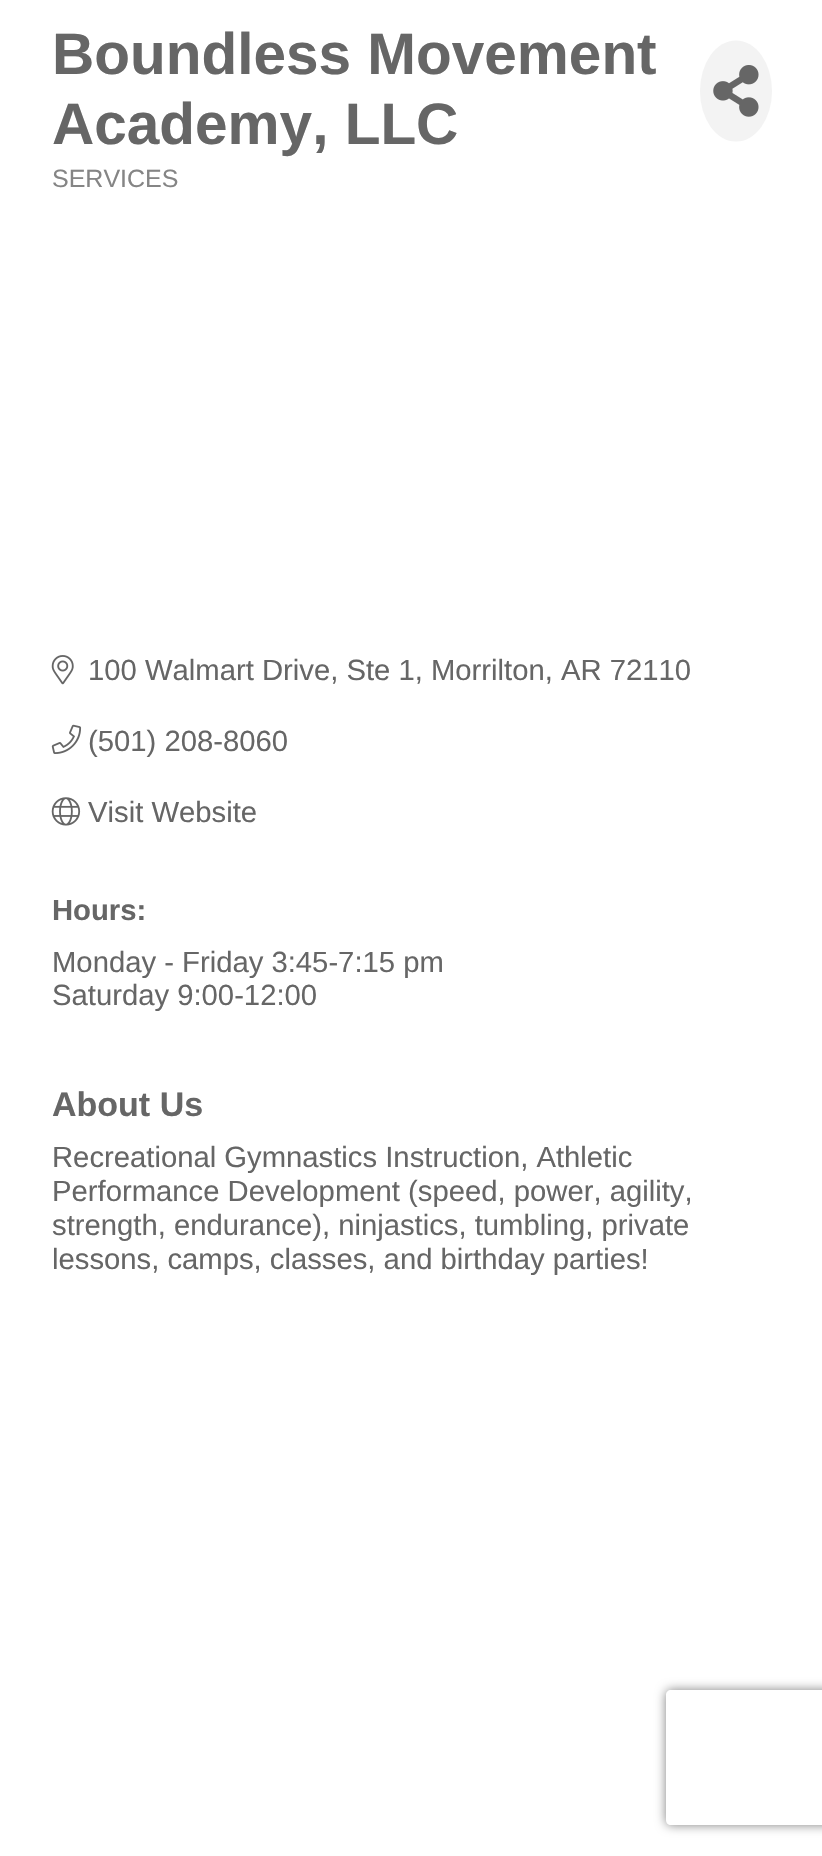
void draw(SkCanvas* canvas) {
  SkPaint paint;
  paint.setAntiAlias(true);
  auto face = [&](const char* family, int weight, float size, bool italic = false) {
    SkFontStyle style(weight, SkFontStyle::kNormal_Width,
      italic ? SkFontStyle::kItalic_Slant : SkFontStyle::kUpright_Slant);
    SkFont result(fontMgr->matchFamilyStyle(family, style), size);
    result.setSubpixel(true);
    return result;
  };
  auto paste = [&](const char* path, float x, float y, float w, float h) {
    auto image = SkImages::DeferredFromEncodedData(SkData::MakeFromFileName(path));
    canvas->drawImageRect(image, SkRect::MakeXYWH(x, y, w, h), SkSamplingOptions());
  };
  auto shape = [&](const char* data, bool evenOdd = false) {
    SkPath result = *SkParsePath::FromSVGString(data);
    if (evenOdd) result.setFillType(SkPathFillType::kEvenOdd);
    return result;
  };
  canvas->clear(0xffffffff);
  paint.setColor(0xfff3f3f3);
  canvas->drawOval(SkRect::MakeXYWH(700, 40.5f, 72, 101), paint);
  paste("img/1.png", 713, 65, 46, 52);
  paste("img/2.png", 51, 655, 23, 30);
  paste("img/3.png", 51, 724, 31, 30);
  paste("img/4.png", 51, 797, 30, 29);
  canvas->save();
  canvas->clipPath(shape("M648 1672H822V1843H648ZM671 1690H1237C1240 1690 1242 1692 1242 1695V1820C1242 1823 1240 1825 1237 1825H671C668 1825 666 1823 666 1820V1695C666 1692 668 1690 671 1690Z", true), true);
  paint.setColor(0xff808080);
  paint.setMaskFilter(SkMaskFilter::MakeBlur(kNormal_SkBlurStyle, 5.5f));
  canvas->drawRoundRect(SkRect::MakeXYWH(666, 1690, 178, 135), 5, 5, paint);
  paint.setMaskFilter(nullptr);
  canvas->restore();
  auto f0 = face("Liberation Sans", 700, 58.5f);
  paint.setColor(0xff666666);
  canvas->drawString("Boundless Movement", 52, 74, f0, paint);
  canvas->drawString("Academy, LLC", 52, 144, f0, paint);
  auto f1 = face("Liberation Sans", 400, 25);
  paint.setColor(0xff858585);
  canvas->drawString("SERVICES", 52, 187, f1, paint);
  auto f2 = face("Liberation Sans", 400, 29.25f);
  paint.setColor(0xff666666);
  {
    const struct { const char* s; float x, y; } items[] = {
      {"100 Walmart Drive, Ste 1, Morrilton, AR 72110", 88, 680},
      {"(501) 208-8060", 88, 751},
      {"Visit Website", 88, 822},
    };
    for (auto [s, x, y] : items) {
      canvas->drawString(s, x, y, f2, paint);
    }
  }
  auto f3 = face("Liberation Sans", 700, 29.25f);
  canvas->drawString("Hours:", 52, 920, f3, paint);
  canvas->drawString("Monday - Friday 3:45-7:15 pm", 52, 972, f2, paint);
  canvas->drawString("Saturday 9:00-12:00", 52, 1005, f2, paint);
  auto f4 = face("Liberation Sans", 700, 34);
  canvas->drawString("About Us", 52, 1116, f4, paint);
  {
    const struct { const char* s; float x, y; } items[] = {
      {"Recreational Gymnastics Instruction, Athletic", 52, 1167},
      {"Performance Development (speed, power, agility,", 52, 1201},
      {"strength, endurance), ninjastics, tumbling, private", 52, 1235},
      {"lessons, camps, classes, and birthday parties!", 52, 1269},
    };
    for (auto [s, x, y] : items) {
      canvas->drawString(s, x, y, f2, paint);
    }
  }
}
